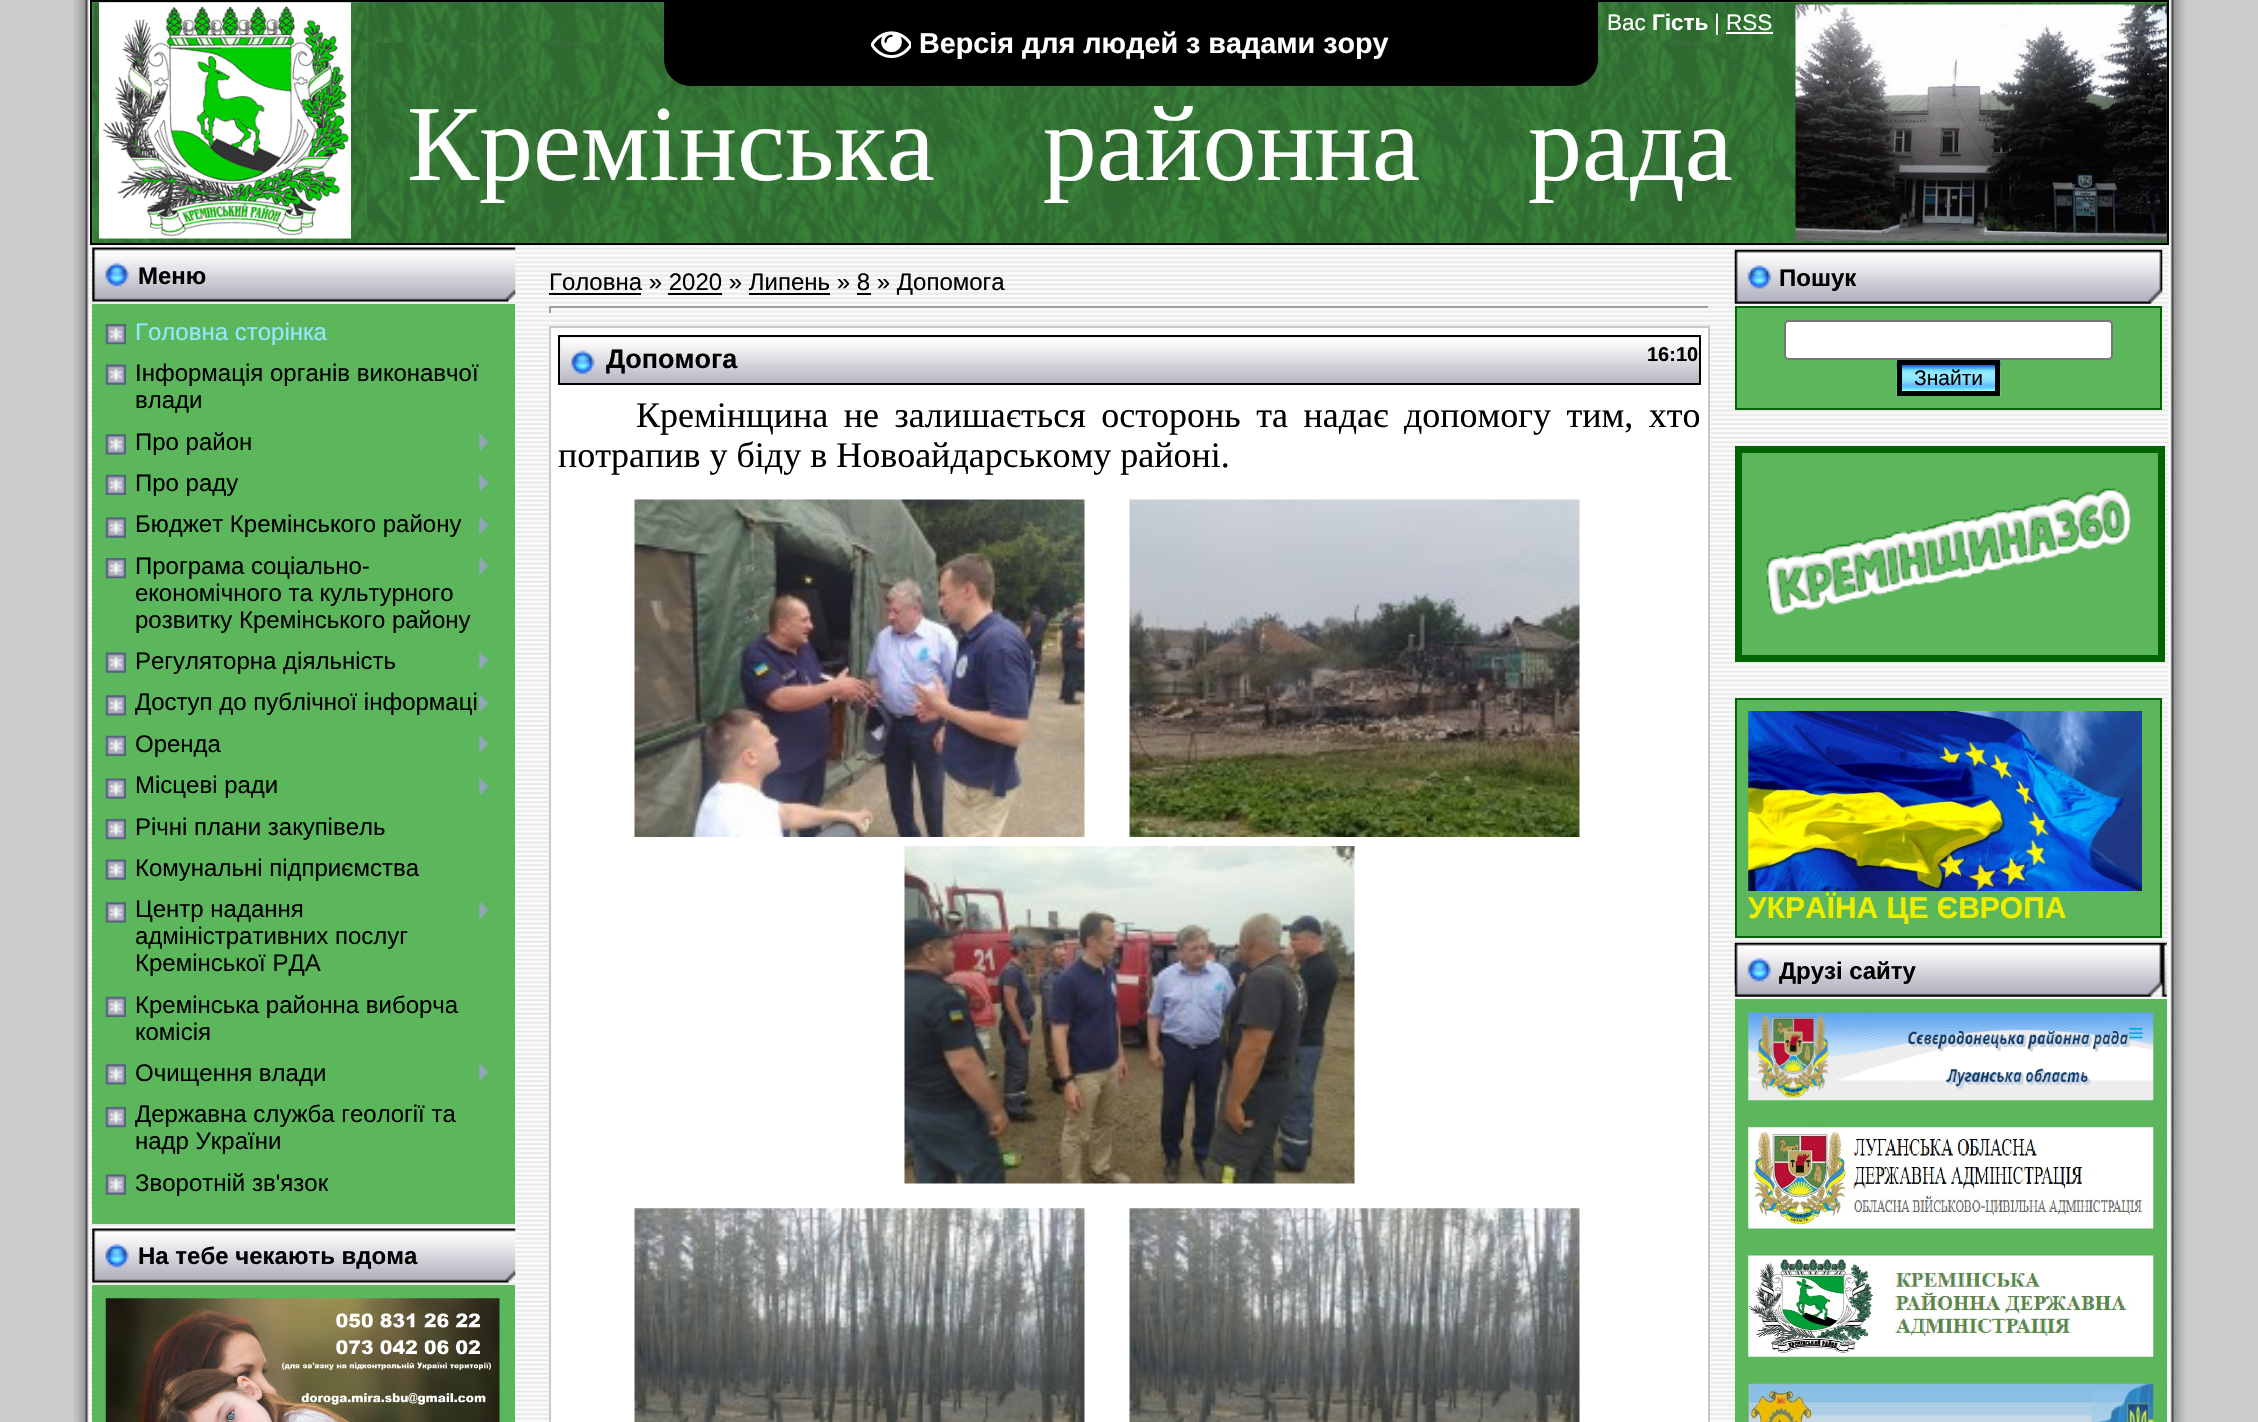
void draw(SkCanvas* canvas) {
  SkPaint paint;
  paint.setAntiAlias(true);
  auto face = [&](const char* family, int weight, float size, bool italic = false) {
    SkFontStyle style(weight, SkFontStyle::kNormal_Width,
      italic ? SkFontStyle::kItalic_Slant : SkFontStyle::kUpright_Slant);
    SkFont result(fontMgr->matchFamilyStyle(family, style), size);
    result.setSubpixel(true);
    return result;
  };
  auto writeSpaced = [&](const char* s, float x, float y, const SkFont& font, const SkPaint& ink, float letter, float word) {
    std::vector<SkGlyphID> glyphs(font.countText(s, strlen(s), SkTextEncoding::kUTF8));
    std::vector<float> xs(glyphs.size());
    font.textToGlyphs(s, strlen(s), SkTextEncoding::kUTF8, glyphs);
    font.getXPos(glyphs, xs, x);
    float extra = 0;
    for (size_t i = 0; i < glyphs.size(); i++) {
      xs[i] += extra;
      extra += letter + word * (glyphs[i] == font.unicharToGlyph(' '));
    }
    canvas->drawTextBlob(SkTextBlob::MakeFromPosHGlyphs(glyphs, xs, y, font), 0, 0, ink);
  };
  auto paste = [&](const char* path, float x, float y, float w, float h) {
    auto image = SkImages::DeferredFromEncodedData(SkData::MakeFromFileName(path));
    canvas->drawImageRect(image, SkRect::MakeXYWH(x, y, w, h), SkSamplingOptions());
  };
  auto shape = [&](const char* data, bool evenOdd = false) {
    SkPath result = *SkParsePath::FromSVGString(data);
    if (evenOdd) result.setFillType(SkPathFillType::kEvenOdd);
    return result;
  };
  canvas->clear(0xffffffff);
  paint.setColor(0xffcccccc);
  canvas->drawRect(SkRect::MakeXYWH(0, 0, 73, 1422), paint);
  paste("img/1.png", 73, 0, 17, 1422);
  paste("img/2.png", 90, 2, 2079, 244);
  paint.setStroke(true);
  paint.setStrokeWidth(2);
  paint.setColor(0xff000000);
  canvas->drawRect(SkRect::MakeXYWH(91, 1, 2077, 243), paint);
  paint.setStroke(false);
  paint.setColor(0xff5cb65c);
  canvas->drawRect(SkRect::MakeXYWH(92, 2, 275, 241), paint);
  paste("img/3.png", 92, 2, 275, 241);
  paste("img/4.png", 99, 2, 252, 237);
  paste("img/5.png", 366, 2, 1407, 41);
  paint.setColor(0xffffffff);
  canvas->drawRect(SkRect::MakeXYWH(1726, 32, 47, 2), paint);
  paint.setColor(0xff5cb65c);
  canvas->drawRect(SkRect::MakeXYWH(1773, 2, 394, 241), paint);
  paste("img/6.png", 1773, 2, 394, 241);
  paste("img/7.png", 1795, 4, 372, 237);
  paste("img/8.png", 366, 42, 1407, 201);
  paste("img/9.png", 90, 245, 2079, 1177);
  paste("img/10.png", 92, 247, 424, 55);
  canvas->drawRect(SkRect::MakeXYWH(92, 304, 423, 920), paint);
  paste("img/11.png", 105, 324, 21, 21);
  paste("img/12.png", 105, 364, 21, 21);
  paste("img/13.png", 105, 434, 21, 21);
  paste("img/14.png", 479, 434, 10, 16);
  paste("img/15.png", 105, 474, 21, 21);
  paste("img/16.png", 479, 474, 10, 17);
  paste("img/12.png", 105, 517, 21, 21);
  paste("img/17.png", 479, 517, 10, 17);
  paste("img/11.png", 105, 558, 21, 21);
  paste("img/18.png", 479, 558, 10, 16);
  paste("img/12.png", 105, 652, 21, 21);
  paste("img/17.png", 479, 652, 10, 17);
  paste("img/13.png", 105, 695, 21, 21);
  paste("img/19.png", 479, 695, 10, 16);
  paste("img/15.png", 105, 735, 21, 21);
  paste("img/16.png", 479, 735, 10, 17);
  paste("img/20.png", 105, 778, 21, 21);
  paste("img/21.png", 479, 778, 10, 17);
  paste("img/11.png", 105, 819, 21, 21);
  paste("img/12.png", 105, 859, 21, 21);
  paste("img/13.png", 105, 902, 21, 21);
  paste("img/14.png", 479, 902, 10, 16);
  paste("img/15.png", 105, 996, 21, 21);
  paste("img/13.png", 105, 1064, 21, 21);
  paste("img/14.png", 479, 1064, 10, 16);
  paste("img/11.png", 105, 1107, 21, 21);
  paste("img/12.png", 105, 1174, 21, 21);
  paste("img/10.png", 92, 1228, 424, 55);
  canvas->drawRect(SkRect::MakeXYWH(92, 1285, 423, 137), paint);
  paste("img/22.png", 105, 1298, 395, 124);
  {
    const struct { float x, y, w, h; SkColor color; } items[] = {
      {549, 293, 92, 2, 0xff000000},
      {668, 293, 54, 2, 0xff000000},
      {749, 293, 81, 2, 0xff000000},
      {857, 293, 14, 2, 0xff000000},
      {549, 306, 1161, 2, 0xff9f9f9f},
      {1708, 306, 2, 7, 0xffeeeeee},
      {549, 311, 1161, 1, 0xffeeeeee},
      {549, 306, 2, 7, 0xff9f9f9f},
    };
    for (auto [x, y, w, h, color] : items) {
      paint.setColor(color);
      canvas->drawRect(SkRect::MakeXYWH(x, y, w, h), paint);
    }
  }
  paint.setColor(0xffffffff);
  canvas->drawRect(SkRect::MakeXYWH(550, 327, 1159, 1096), paint);
  paint.setStroke(true);
  paint.setColor(0xffc7c9ce);
  canvas->drawRect(SkRect::MakeXYWH(550, 327, 1159, 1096), paint);
  paint.setStroke(false);
  paint.setColor(0xffd6d7dd);
  canvas->drawRect(SkRect::MakeXYWH(560, 337, 1139, 46), paint);
  paste("img/23.png", 560, 337, 1139, 46);
  paint.setStroke(true);
  paint.setColor(0xff060000);
  canvas->drawRect(SkRect::MakeXYWH(559, 336, 1141, 48), paint);
  paste("img/24.png", 634, 499, 451, 338);
  paste("img/25.png", 1129, 499, 451, 338);
  paste("img/26.png", 904, 846, 451, 338);
  paste("img/27.png", 634, 1208, 451, 214);
  paste("img/28.png", 1129, 1208, 451, 214);
  paste("img/29.png", 1734, 249, 429, 55);
  paint.setStroke(false);
  paint.setColor(0xff5cb65c);
  canvas->drawRect(SkRect::MakeXYWH(1736, 307, 425, 102), paint);
  paint.setStroke(true);
  paint.setColor(0xff006400);
  canvas->drawRect(SkRect::MakeXYWH(1736, 307, 425, 102), paint);
  paint.setStroke(false);
  paint.setColor(0xffffffff);
  canvas->drawRoundRect(SkRect::MakeXYWH(1785, 321, 327, 38), 4, 4, paint);
  paint.setStroke(true);
  paint.setColor(0xff767676);
  canvas->drawRoundRect(SkRect::MakeXYWH(1785, 321, 327, 38), 4, 4, paint);
  paste("img/30.png", 1896, 360, 105, 36);
  paint.setStrokeWidth(5);
  paint.setColor(0xff000000);
  canvas->drawRect(SkRect::MakeXYWH(1899.5f, 362.5f, 98, 31), paint);
  paint.setStroke(false);
  paint.setColor(0xff5cb65c);
  canvas->drawRect(SkRect::MakeXYWH(1738.5f, 449.5f, 423, 209), paint);
  paint.setStroke(true);
  paint.setStrokeWidth(7);
  paint.setColor(0xff006400);
  canvas->drawRect(SkRect::MakeXYWH(1738.5f, 449.5f, 423, 209), paint);
  paste("img/31.png", 1766, 488, 366, 128);
  paint.setStroke(false);
  paint.setColor(0xff5cb65c);
  canvas->drawRect(SkRect::MakeXYWH(1736, 699, 425, 238), paint);
  paint.setStroke(true);
  paint.setStrokeWidth(2);
  paint.setColor(0xff006400);
  canvas->drawRect(SkRect::MakeXYWH(1736, 699, 425, 238), paint);
  paste("img/32.png", 1748, 711, 394, 180);
  paste("img/33.png", 1734, 942, 433, 55);
  paint.setStroke(false);
  paint.setColor(0xff5cb65c);
  canvas->drawRect(SkRect::MakeXYWH(1735, 999, 432, 423), paint);
  paste("img/34.png", 1748, 1012, 406, 89);
  paste("img/35.png", 1748, 1127, 406, 102);
  paste("img/36.png", 1748, 1255, 406, 102);
  paste("img/37.png", 1748, 1383, 406, 39);
  paint.setColor(0xffcccccc);
  canvas->drawRect(SkRect::MakeXYWH(2186, 0, 72, 1422), paint);
  paste("img/38.png", 2169, 0, 17, 1422);
  paint.setColor(0xff000000);
  canvas->drawPath(shape("M664 0H1598V59C1598 74 1586 86 1571 86H691C676 86 664 74 664 59Z"), paint);
  paste("img/39.png", 871, 31, 40, 28);
  auto f0 = face("Liberation Sans", 400, 22.5f);
  paint.setColor(0xffffffff);
  canvas->drawString("Вас", 1607, 30, f0, paint);
  auto f1 = face("Liberation Sans", 700, 22.5f);
  canvas->drawString("Гість", 1652, 30, f1, paint);
  canvas->drawString("| RSS", 1714, 30, f0, paint);
  auto f2 = face("Liberation Serif", 400, 108);
  canvas->drawString("Кремінська    районна    рада", 407, 180, f2, paint);
  auto f3 = face("Liberation Sans", 700, 24);
  paint.setColor(0xff000000);
  canvas->drawString("Меню", 138, 284, f3, paint);
  auto f4 = face("Liberation Sans", 400, 24);
  paint.setColor(0xff94e7ff);
  canvas->drawString("Головна сторінка", 135, 340, f4, paint);
  paint.setColor(0xff000000);
  {
    const struct { const char* s; float x, y; } items[] = {
      {"Інформація органів виконавчої", 135, 381},
      {"влади", 135, 408},
      {"Про район", 135, 450},
      {"Про раду", 135, 491},
      {"Бюджет Кремінського району", 135, 532},
      {"Програма соціально-", 135, 574},
      {"економічного та культурного", 135, 601},
      {"розвитку Кремінського району", 135, 628},
      {"Регуляторна діяльність", 135, 669},
      {"Доступ до публічної інформаці", 135, 710},
      {"Оренда", 135, 752},
      {"Місцеві ради", 135, 793},
      {"Річні плани закупівель", 135, 835},
      {"Комунальні підприємства", 135, 876},
      {"Центр надання", 135, 917},
      {"адміністративних послуг", 135, 944},
      {"Кремінської РДА", 135, 971},
      {"Кремінська районна виборча", 135, 1013},
      {"комісія", 135, 1040},
      {"Очищення влади", 135, 1081},
      {"Державна служба геології та", 135, 1122},
      {"надр України", 135, 1149},
      {"Зворотній зв'язок", 135, 1191},
    };
    for (auto [s, x, y] : items) {
      canvas->drawString(s, x, y, f4, paint);
    }
  }
  canvas->drawString("На тебе чекають вдома", 138, 1264, f3, paint);
  canvas->drawString("Головна » 2020 » Липень » 8 » Допомога", 549, 290, f4, paint);
  auto f5 = face("Liberation Sans", 700, 27);
  canvas->drawString("Допомога", 606, 368, f5, paint);
  auto f6 = face("Liberation Sans", 700, 20);
  canvas->drawString("16:10", 1647, 361, f6, paint);
  auto f7 = face("Liberation Serif", 400, 36);
  writeSpaced("Кремінщина не залишається осторонь та надає допомогу тим, хто", 636, 427, f7, paint, 0, 6.5f);
  canvas->drawString("потрапив у біду в Новоайдарському районі.", 558, 467, f7, paint);
  canvas->drawString("Пошук", 1779, 286, f3, paint);
  auto f8 = face("Liberation Sans", 400, 21);
  canvas->drawString("Знайти", 1914, 385, f8, paint);
  auto f9 = face("Liberation Sans", 700, 30);
  paint.setColor(0xffeded00);
  canvas->drawString("УКРАЇНА ЦЕ ЄВРОПА", 1748, 918, f9, paint);
  paint.setColor(0xff000000);
  canvas->drawString("Друзі сайту", 1779, 979, f3, paint);
  auto f10 = face("Liberation Sans", 700, 28.75f);
  paint.setColor(0xffffffff);
  canvas->drawString("Версія для людей з вадами зору", 919, 53, f10, paint);
}
